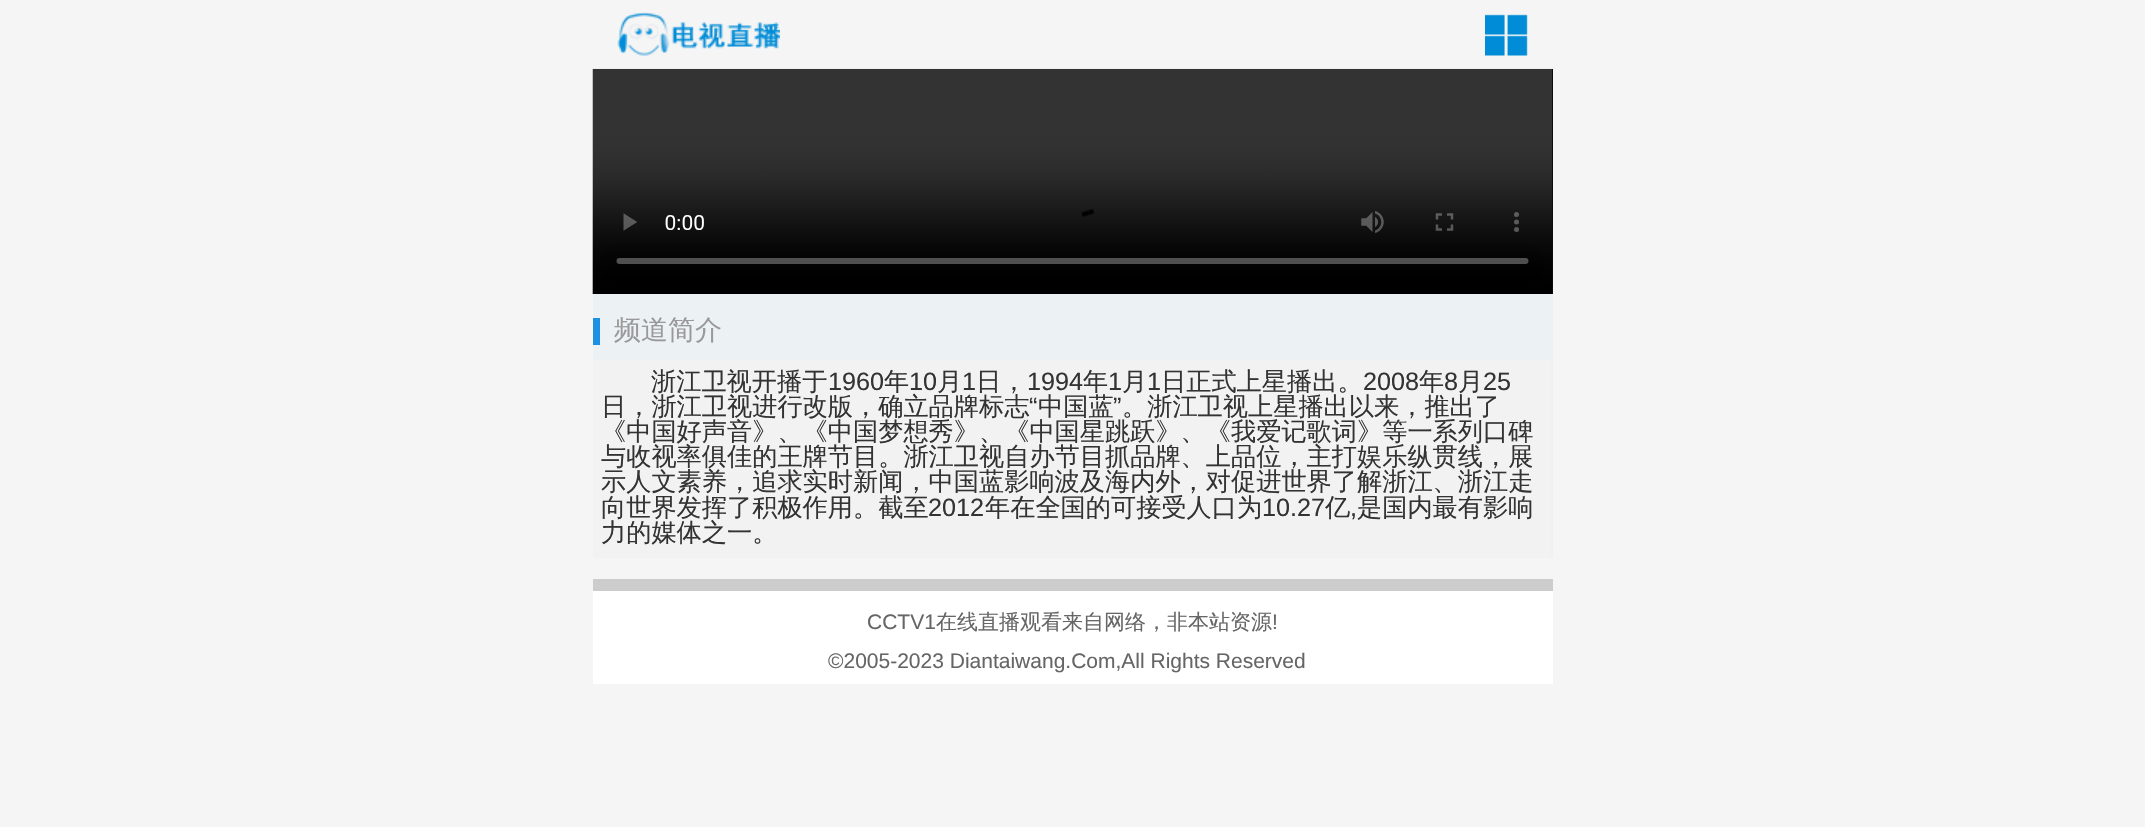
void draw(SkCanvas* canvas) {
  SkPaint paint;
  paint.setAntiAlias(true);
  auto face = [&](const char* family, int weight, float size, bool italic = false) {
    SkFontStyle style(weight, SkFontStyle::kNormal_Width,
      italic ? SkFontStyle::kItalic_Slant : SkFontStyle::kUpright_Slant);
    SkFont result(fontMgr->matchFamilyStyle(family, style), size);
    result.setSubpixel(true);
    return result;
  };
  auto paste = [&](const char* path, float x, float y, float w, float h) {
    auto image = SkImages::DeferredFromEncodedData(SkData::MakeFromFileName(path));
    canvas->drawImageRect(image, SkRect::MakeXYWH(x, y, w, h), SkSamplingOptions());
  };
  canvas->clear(0xfff5f5f5);
  paint.setColor(0xffeef0ef);
  canvas->drawRect(SkRect::MakeXYWH(593, 68, 960, 1), paint);
  paste("img/1.png", 617, 12, 163, 44);
  paste("img/2.png", 1485, 14, 43, 42);
  paint.setColor(0xffecf1f4);
  canvas->drawRect(SkRect::MakeXYWH(593, 294, 960, 264), paint);
  paint.setColor(0xff000000);
  canvas->drawRect(SkRect::MakeXYWH(1552, 69, 1, 225), paint);
  paste("img/3.png", 592, 69, 961, 225);
  {
    const struct { float x, y, w, h; SkColor color; } items[] = {
      {593, 318, 7, 27, 0xff1c90e3},
      {593, 360, 958, 198, 0xfff2f2f2},
      {593, 591, 960, 93, 0xffffffff},
      {593, 579, 960, 12, 0xffcccccc},
    };
    for (auto [x, y, w, h, color] : items) {
      paint.setColor(color);
      canvas->drawRect(SkRect::MakeXYWH(x, y, w, h), paint);
    }
  }
  auto f0 = face("WenQuanYi Zen Hei", 500, 27);
  paint.setColor(0xff999999);
  canvas->drawString("频道简介", 614, 339, f0, paint);
  auto f1 = face("WenQuanYi Zen Hei", 500, 25.2f);
  paint.setColor(0xff333333);
  canvas->drawString("浙江卫视开播于", 651, 390, f1, paint);
  auto f2 = face("Liberation Sans", 400, 25.2f);
  canvas->drawString("1960", 828, 390, f2, paint);
  canvas->drawString("年", 884, 390, f1, paint);
  canvas->drawString("10", 909, 390, f2, paint);
  canvas->drawString("月", 937, 390, f1, paint);
  canvas->drawString("1", 962, 390, f2, paint);
  canvas->drawString("日，", 976, 390, f1, paint);
  canvas->drawString("1994", 1027, 390, f2, paint);
  canvas->drawString("年", 1083, 390, f1, paint);
  canvas->drawString("1", 1108, 390, f2, paint);
  canvas->drawString("月", 1122, 390, f1, paint);
  canvas->drawString("1", 1147, 390, f2, paint);
  canvas->drawString("日正式上星播出。", 1161, 390, f1, paint);
  canvas->drawString("2008", 1363, 390, f2, paint);
  canvas->drawString("年", 1419, 390, f1, paint);
  canvas->drawString("8", 1444, 390, f2, paint);
  canvas->drawString("月", 1458, 390, f1, paint);
  canvas->drawString("25", 1483, 390, f2, paint);
  canvas->drawString("日，浙江卫视进行改版，确立品牌标志", 601, 415, f1, paint);
  canvas->drawString("“", 1029, 415, f2, paint);
  canvas->drawString("中国蓝", 1038, 415, f1, paint);
  canvas->drawString("”", 1113, 415, f2, paint);
  {
    const struct { const char* s; float x, y; } items[] = {
      {"。浙江卫视上星播出以来，推出了", 1122, 415},
      {"《中国好声音》、《中国梦想秀》、《中国星跳跃》、《我爱记歌词》等一系列口碑", 601, 440},
      {"与收视率俱佳的王牌节目。浙江卫视自办节目抓品牌、上品位，主打娱乐纵贯线，展", 601, 465},
      {"示人文素养，追求实时新闻，中国蓝影响波及海内外，对促进世界了解浙江、浙江走", 601, 490},
      {"向世界发挥了积极作用。截至", 601, 516},
    };
    for (auto [s, x, y] : items) {
      canvas->drawString(s, x, y, f1, paint);
    }
  }
  canvas->drawString("2012", 928, 516, f2, paint);
  canvas->drawString("年在全国的可接受人口为", 985, 516, f1, paint);
  canvas->drawString("10.27", 1262, 516, f2, paint);
  canvas->drawString("亿", 1325, 516, f1, paint);
  canvas->drawString(",", 1350, 516, f2, paint);
  canvas->drawString("是国内最有影响", 1357, 516, f1, paint);
  canvas->drawString("力的媒体之一。", 601, 541, f1, paint);
  auto f3 = face("Liberation Sans", 400, 21);
  paint.setColor(0xff666666);
  canvas->drawString("CCTV1", 867, 629, f3, paint);
  auto f4 = face("WenQuanYi Zen Hei", 500, 21);
  canvas->drawString("在线直播观看来自网络，非本站资源", 936, 629, f4, paint);
  canvas->drawString("!", 1272, 629, f3, paint);
  canvas->drawString("©2005-2023 Diantaiwang.Com,All Rights Reserved", 828, 668, f3, paint);
}
